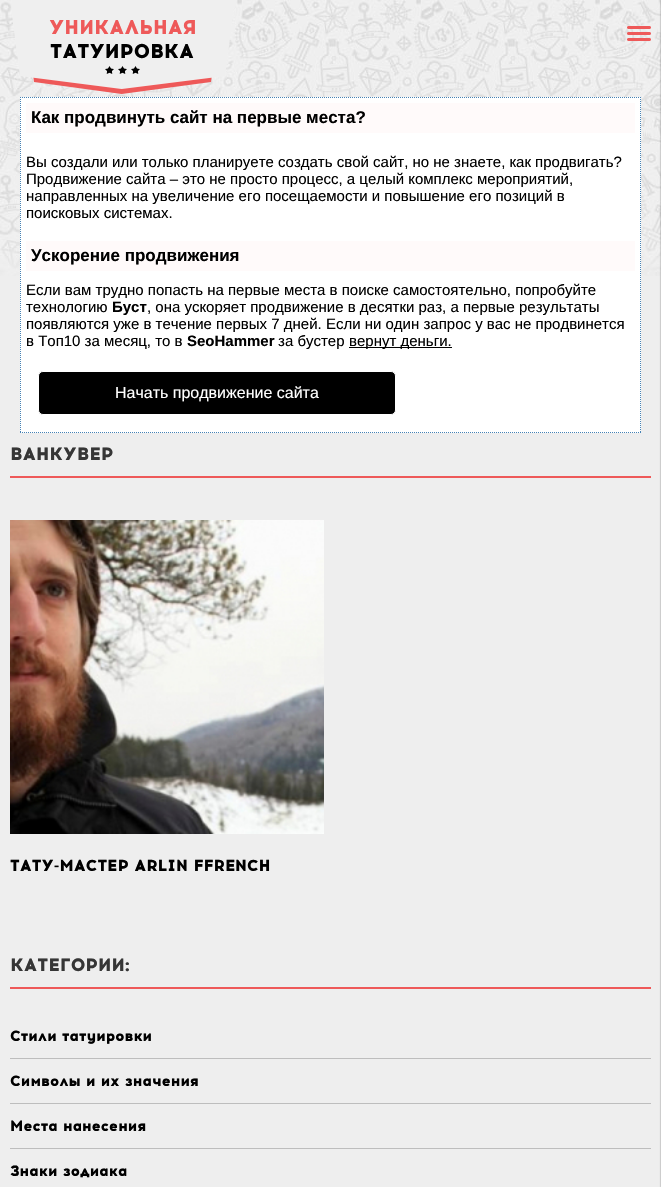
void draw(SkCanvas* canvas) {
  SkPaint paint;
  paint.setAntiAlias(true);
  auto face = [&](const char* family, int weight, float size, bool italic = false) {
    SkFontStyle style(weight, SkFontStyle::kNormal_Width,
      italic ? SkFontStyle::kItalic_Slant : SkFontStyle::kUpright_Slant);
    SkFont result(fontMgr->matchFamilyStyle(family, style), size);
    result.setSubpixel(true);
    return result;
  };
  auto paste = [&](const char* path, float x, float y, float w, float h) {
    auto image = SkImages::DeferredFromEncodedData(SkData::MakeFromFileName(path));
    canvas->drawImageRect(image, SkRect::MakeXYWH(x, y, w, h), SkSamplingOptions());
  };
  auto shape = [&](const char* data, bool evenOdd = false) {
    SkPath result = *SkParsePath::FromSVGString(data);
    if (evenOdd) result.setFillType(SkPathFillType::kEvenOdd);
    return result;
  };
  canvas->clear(0xffeeeeee);
  paste("img/1.png", 0, 0, 661, 276);
  paste("img/2.png", 12, 0, 221, 94);
  paste("img/3.png", 627, 26, 24, 15);
  paint.setColor(0x26000000);
  paint.setMaskFilter(SkMaskFilter::MakeBlur(kNormal_SkBlurStyle, 0.5f));
  canvas->drawRect(SkRect::MakeXYWH(660, 0, 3, 1187), paint);
  paint.setMaskFilter(nullptr);
  paint.setColor(0xffffffff);
  canvas->drawRect(SkRect::MakeXYWH(20, 97, 621, 336), paint);
  paint.setStroke(true);
  paint.setStrokeWidth(1);
  paint.setColor(0xff4682b4);
  paint.setPathEffect(SkDashPathEffect::Make({{1, 1}}, 0));
  canvas->drawPath(shape("M20 97.5H641"), paint);
  paint.setPathEffect(nullptr);
  paint.setPathEffect(SkDashPathEffect::Make({{1, 1}}, 0));
  canvas->drawPath(shape("M640.5 97V433"), paint);
  paint.setPathEffect(nullptr);
  paint.setPathEffect(SkDashPathEffect::Make({{1, 1}}, 0));
  canvas->drawPath(shape("M20 432.5H641"), paint);
  paint.setPathEffect(nullptr);
  paint.setPathEffect(SkDashPathEffect::Make({{1, 1}}, 0));
  canvas->drawPath(shape("M20.5 97V433"), paint);
  paint.setPathEffect(nullptr);
  paint.setStroke(false);
  {
    const struct { float x, y, w, h; SkColor color; } items[] = {
      {26, 103, 609, 30, 0xfffffafa},
      {26, 241, 609, 30, 0xfffffafa},
      {349, 347, 103, 1, 0xff000000},
    };
    for (auto [x, y, w, h, color] : items) {
      paint.setColor(color);
      canvas->drawRect(SkRect::MakeXYWH(x, y, w, h), paint);
    }
  }
  canvas->drawRoundRect(SkRect::MakeXYWH(38.5f, 371.5f, 357, 43), 4.5f, 4.5f, paint);
  paint.setStroke(true);
  paint.setColor(0xffffffff);
  canvas->drawRoundRect(SkRect::MakeXYWH(38.5f, 371.5f, 357, 43), 4.5f, 4.5f, paint);
  paint.setStroke(false);
  paint.setColor(0xffee5959);
  canvas->drawRect(SkRect::MakeXYWH(10, 476, 641, 2), paint);
  paste("img/4.png", 10, 520, 314, 314);
  {
    const struct { float x, y, w, h; SkColor color; } items[] = {
      {10, 987, 641, 2, 0xffee5959},
      {10, 1058, 641, 1, 0xffbdbdbd},
      {10, 1103, 641, 1, 0xffbdbdbd},
      {10, 1148, 641, 1, 0xffbdbdbd},
    };
    for (auto [x, y, w, h, color] : items) {
      paint.setColor(color);
      canvas->drawRect(SkRect::MakeXYWH(x, y, w, h), paint);
    }
  }
  auto f0 = face("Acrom", 800, 20);
  paint.setColor(0xffee5959);
  canvas->drawString("УНИКАЛЬНАЯ", 49, 34, f0, paint);
  paint.setColor(0xff000000);
  canvas->drawString("ТАТУИРОВКА", 50, 58, f0, paint);
  auto f1 = face("Liberation Sans", 700, 17);
  canvas->drawString("Как продвинуть сайт на первые места?", 31, 123, f1, paint);
  auto f2 = face("Liberation Sans", 400, 15);
  {
    const struct { const char* s; float x, y; } items[] = {
      {"Вы создали или только планируете создать свой сайт, но не знаете, как продвигать?", 26, 167},
      {"Продвижение сайта – это не просто процесс, а целый комплекс мероприятий,", 26, 184},
      {"направленных на увеличение его посещаемости и повышение его позиций в", 26, 201},
      {"поисковых системах.", 26, 218},
    };
    for (auto [s, x, y] : items) {
      canvas->drawString(s, x, y, f2, paint);
    }
  }
  canvas->drawString("Ускорение продвижения", 31, 261, f1, paint);
  canvas->drawString("Если вам трудно попасть на первые места в поиске самостоятельно, попробуйте", 26, 295, f2, paint);
  canvas->drawString("технологию", 26, 312, f2, paint);
  auto f3 = face("Liberation Sans", 700, 15);
  canvas->drawString("Буст", 112, 312, f3, paint);
  {
    const struct { const char* s; float x, y; } items[] = {
      {", она ускоряет продвижение в десятки раз, а первые результаты", 147, 312},
      {"появляются уже в течение первых 7 дней. Если ни один запрос у вас не продвинется", 26, 329},
      {"в Топ10 за месяц, то в", 26, 346},
    };
    for (auto [s, x, y] : items) {
      canvas->drawString(s, x, y, f2, paint);
    }
  }
  canvas->drawString("SeoHammer", 187, 346, f3, paint);
  canvas->drawString("за бустер", 278, 346, f2, paint);
  canvas->drawString("вернут деньги.", 349, 346, f2, paint);
  auto f4 = face("Liberation Sans", 400, 16);
  paint.setColor(0xffffffff);
  canvas->drawString("Начать продвижение сайта", 115, 398, f4, paint);
  auto f5 = face("Acrom", 800, 18);
  paint.setColor(0xff363636);
  canvas->drawString("ВАНКУВЕР", 10, 460, f5, paint);
  auto f6 = face("Acrom", 800, 16);
  paint.setColor(0xff000000);
  canvas->drawString("ТАТУ-МАСТЕР ARLIN FFRENCH", 10, 871, f6, paint);
  paint.setColor(0xff363636);
  canvas->drawString("КАТЕГОРИИ:", 10, 971, f5, paint);
  auto f7 = face("Acrom", 800, 15);
  paint.setColor(0xff000000);
  {
    const struct { const char* s; float x, y; } items[] = {
      {"Стили татуировки", 10, 1041},
      {"Символы и их значения", 10, 1086},
      {"Места нанесения", 10, 1131},
      {"Знаки зодиака", 10, 1176},
    };
    for (auto [s, x, y] : items) {
      canvas->drawString(s, x, y, f7, paint);
    }
  }
}
